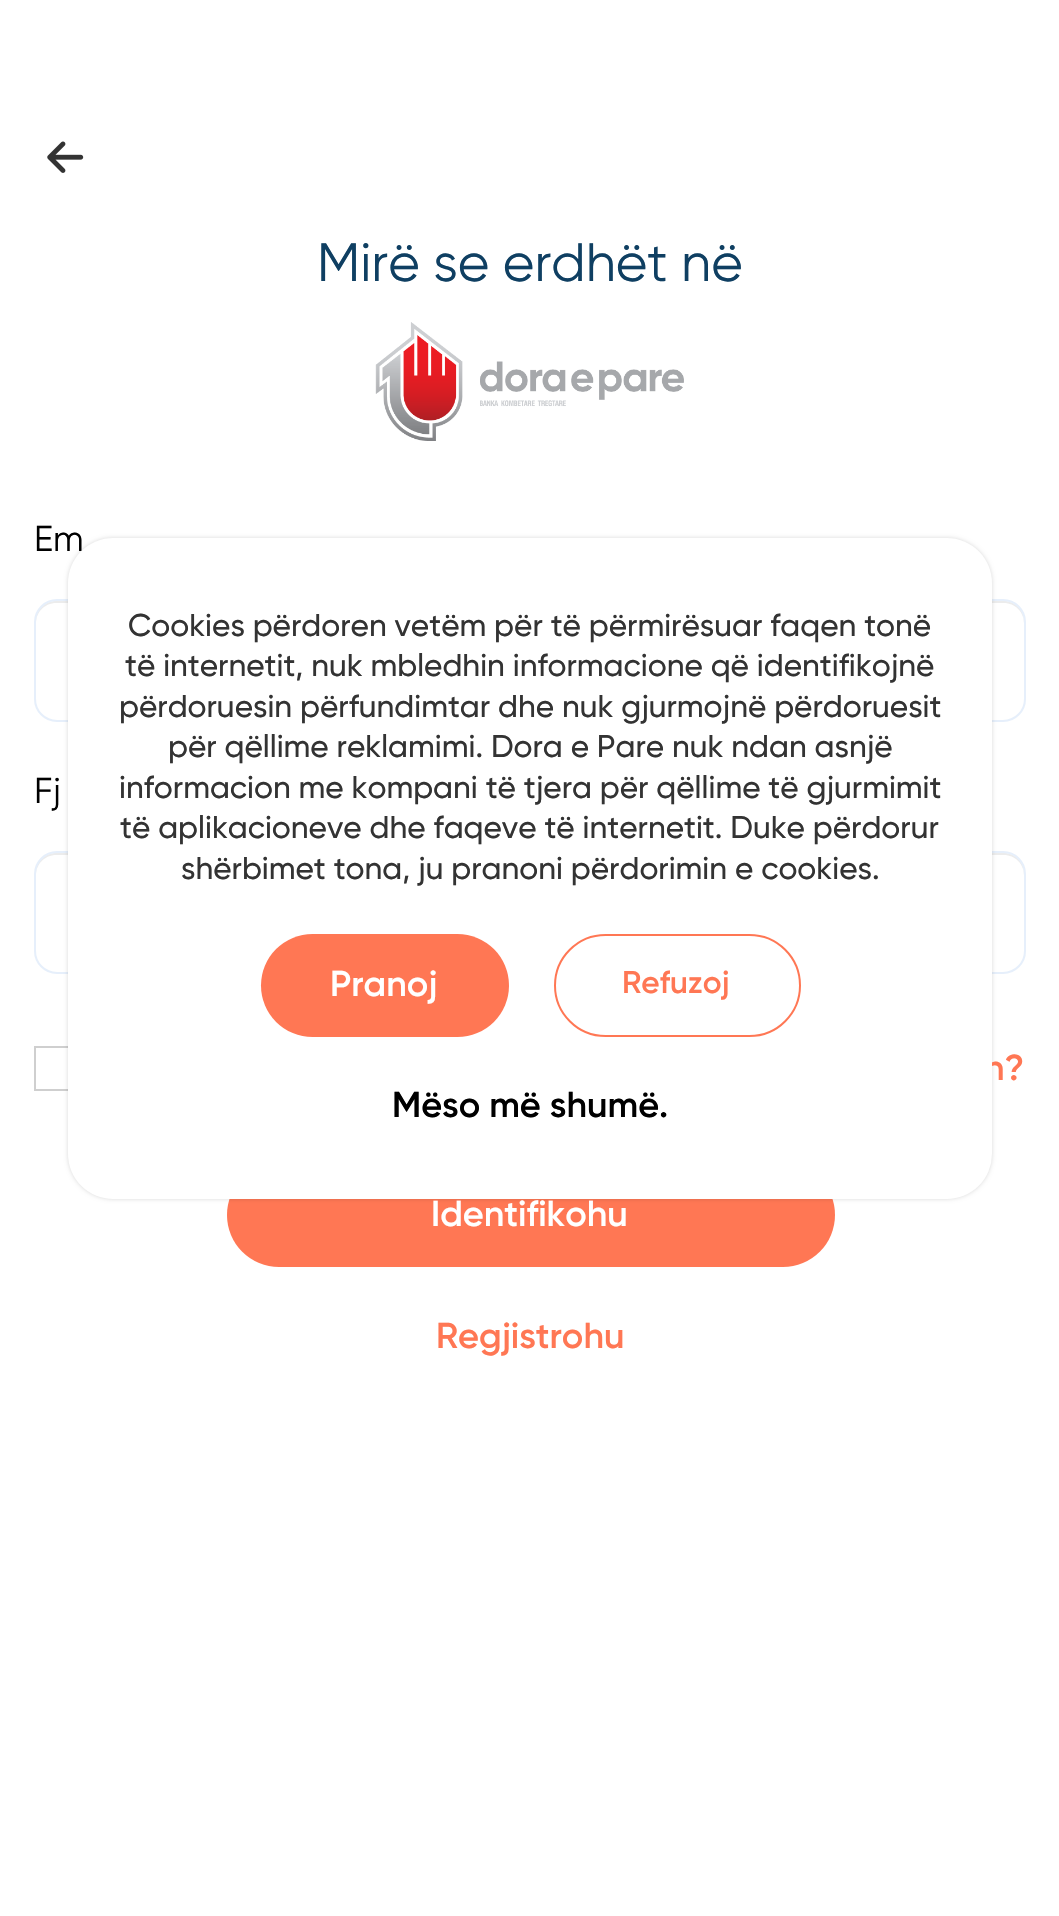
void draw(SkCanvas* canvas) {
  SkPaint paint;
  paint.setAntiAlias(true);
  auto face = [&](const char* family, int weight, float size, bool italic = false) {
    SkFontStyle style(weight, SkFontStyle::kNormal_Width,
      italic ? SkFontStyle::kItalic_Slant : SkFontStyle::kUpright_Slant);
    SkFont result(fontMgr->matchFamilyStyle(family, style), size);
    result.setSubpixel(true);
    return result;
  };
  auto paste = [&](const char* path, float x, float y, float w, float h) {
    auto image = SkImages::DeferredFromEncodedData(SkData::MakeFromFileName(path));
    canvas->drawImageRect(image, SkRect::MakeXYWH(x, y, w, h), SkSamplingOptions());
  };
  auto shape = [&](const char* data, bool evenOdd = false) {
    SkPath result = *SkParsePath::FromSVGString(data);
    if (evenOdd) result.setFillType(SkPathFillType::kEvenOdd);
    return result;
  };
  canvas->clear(0xffffffff);
  paste("img/1.png", 47, 141, 37, 32);
  paste("img/2.png", 375, 322, 309, 119);
  paint.setColor(0xffececec);
  canvas->drawPath(shape("M56 603H1004C1015 603 1024 612 1024 623V621C1024 610 1015 601 1004 601H56C45 601 36 610 36 621V623C36 612 45 603 56 603Z"), paint);
  paint.setStroke(true);
  paint.setStrokeWidth(2);
  paint.setColor(0xffe6effb);
  canvas->drawRoundRect(SkRect::MakeXYWH(35, 600, 990, 121), 22, 22, paint);
  paint.setStroke(false);
  paint.setColor(0xffececec);
  canvas->drawPath(shape("M56 855H1004C1015 855 1024 864 1024 875V873C1024 862 1015 853 1004 853H56C45 853 36 862 36 873V875C36 864 45 855 56 855Z"), paint);
  paint.setStroke(true);
  paint.setColor(0xffe6effb);
  canvas->drawRoundRect(SkRect::MakeXYWH(35, 852, 990, 121), 22, 22, paint);
  paint.setColor(0xffcfcfcf);
  canvas->drawRect(SkRect::MakeXYWH(35, 1047, 43, 43), paint);
  paint.setStroke(false);
  paint.setColor(0xffff7754);
  canvas->drawRoundRect(SkRect::MakeXYWH(227, 1163, 608, 104), 52, 52, paint);
  paint.setColor(0x26000000);
  paint.setMaskFilter(SkMaskFilter::MakeBlur(kNormal_SkBlurStyle, 2));
  canvas->drawRoundRect(SkRect::MakeXYWH(68, 538, 924, 661), 45, 45, paint);
  paint.setMaskFilter(nullptr);
  auto f0 = face("Gilroy", 400, 54);
  paint.setColor(0xff0f3f62);
  canvas->drawString("Mirë se erdhët në", 317, 281, f0, paint);
  auto f1 = face("Gilroy", 400, 36);
  paint.setColor(0xff000000);
  canvas->drawString("Em", 34, 551, f1, paint);
  canvas->drawString("Fj", 34, 803, f1, paint);
  auto f2 = face("Gilroy", 600, 36);
  paint.setColor(0xffff7754);
  canvas->drawString("n?", 984, 1080, f2, paint);
  paint.setColor(0xffffffff);
  canvas->drawString("Identifikohu", 431, 1226, f2, paint);
  paint.setColor(0xffff7754);
  canvas->drawString("Regjistrohu", 436, 1348, f2, paint);
  paint.setColor(0xffffffff);
  canvas->drawRoundRect(SkRect::MakeXYWH(68, 538, 924, 661), 45, 45, paint);
  auto f3 = face("Gilroy", 500, 31.5f);
  paint.setColor(0xff333333);
  {
    const struct { const char* s; float x, y; } items[] = {
      {"Cookies përdoren vetëm për të përmirësuar faqen tonë", 128, 636},
      {"të internetit, nuk mbledhin informacione që identifikojnë", 125, 676},
      {"përdoruesin përfundimtar dhe nuk gjurmojnë përdoruesit", 119, 717},
      {"për qëllime reklamimi. Dora e Pare nuk ndan asnjë", 168, 757},
      {"informacion me kompani të tjera për qëllime të gjurmimit", 119, 798},
      {"të aplikacioneve dhe faqeve të internetit. Duke përdorur", 120, 838},
      {"shërbimet tona, ju pranoni përdorimin e cookies.", 181, 879},
    };
    for (auto [s, x, y] : items) {
      canvas->drawString(s, x, y, f3, paint);
    }
  }
  paint.setColor(0xffff7754);
  canvas->drawRoundRect(SkRect::MakeXYWH(261, 934, 248, 103), 51.5f, 51.5f, paint);
  paint.setColor(0xffffffff);
  canvas->drawString("Pranoj", 330, 996, f2, paint);
  paint.setStroke(true);
  paint.setColor(0xffff7754);
  canvas->drawRoundRect(SkRect::MakeXYWH(555, 935, 245, 101), 50.5f, 50.5f, paint);
  auto f4 = face("Gilroy", 600, 31.5f);
  paint.setStroke(false);
  canvas->drawString("Refuzoj", 622, 993, f4, paint);
  paint.setColor(0xff000000);
  canvas->drawString("Mëso më shumë.", 392, 1117, f2, paint);
}
